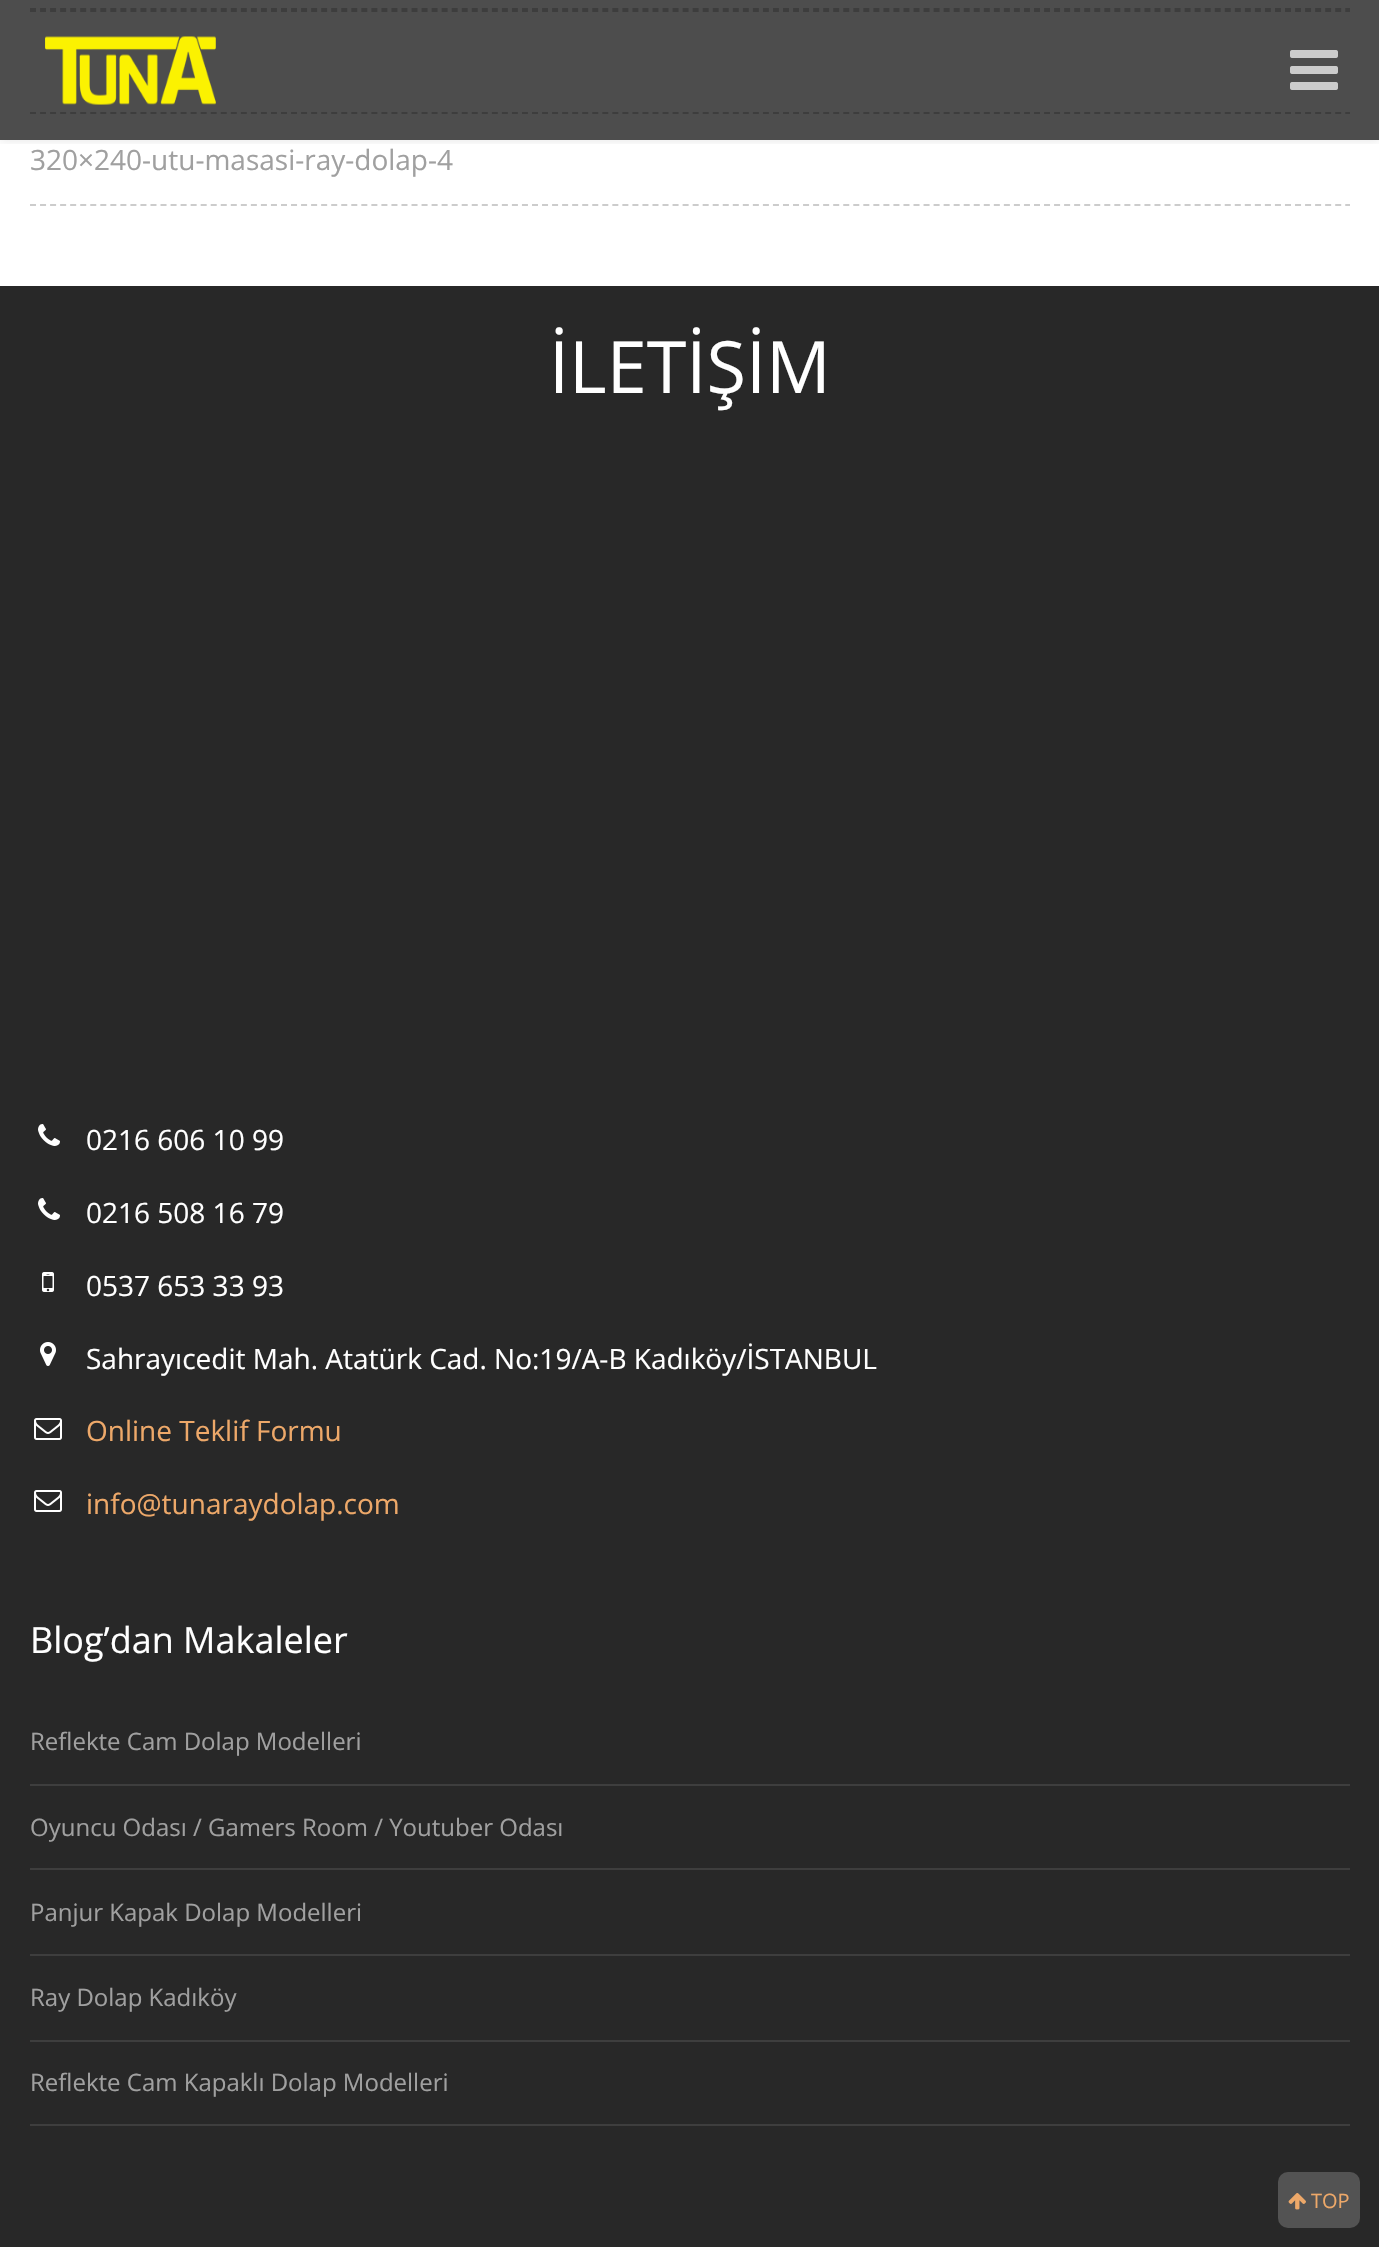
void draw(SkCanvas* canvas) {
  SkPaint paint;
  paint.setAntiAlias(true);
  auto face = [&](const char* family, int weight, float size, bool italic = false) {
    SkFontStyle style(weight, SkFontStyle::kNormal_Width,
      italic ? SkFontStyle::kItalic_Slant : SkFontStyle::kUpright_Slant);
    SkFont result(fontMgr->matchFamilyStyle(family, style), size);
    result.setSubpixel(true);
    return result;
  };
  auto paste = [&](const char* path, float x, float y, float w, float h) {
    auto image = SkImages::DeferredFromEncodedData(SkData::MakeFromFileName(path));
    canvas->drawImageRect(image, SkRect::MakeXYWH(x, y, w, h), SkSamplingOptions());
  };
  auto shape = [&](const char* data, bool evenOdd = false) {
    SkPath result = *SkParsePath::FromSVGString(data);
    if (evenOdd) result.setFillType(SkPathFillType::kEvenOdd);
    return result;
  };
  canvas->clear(0xffffffff);
  paint.setColor(0xff4d4d4d);
  canvas->drawRect(SkRect::MakeXYWH(0, 0, 1379, 140), paint);
  paint.setStroke(true);
  paint.setStrokeWidth(2);
  paint.setColor(0xff3d3d3d);
  paint.setPathEffect(SkDashPathEffect::Make({{6, 4.04f}}, 0));
  canvas->drawPath(shape("M30 9H1350"), paint);
  paint.setPathEffect(nullptr);
  paint.setPathEffect(SkDashPathEffect::Make({{6, 4.04f}}, 0));
  canvas->drawPath(shape("M30 11H1350"), paint);
  paint.setPathEffect(nullptr);
  paint.setPathEffect(SkDashPathEffect::Make({{6, 4.04f}}, 0));
  canvas->drawPath(shape("M30 113H1350"), paint);
  paint.setPathEffect(nullptr);
  canvas->save();
  canvas->clipRect(SkRect::MakeXYWH(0, 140, 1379, 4));
  paint.setStroke(false);
  paint.setColor(0x1a000000);
  paint.setMaskFilter(SkMaskFilter::MakeBlur(kNormal_SkBlurStyle, 5));
  canvas->drawRect(SkRect::MakeXYWH(0, 0, 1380, 140), paint);
  paint.setMaskFilter(nullptr);
  canvas->restore();
  paste("img/1.png", 45, 36, 171, 69);
  paste("img/2.png", 1290, 50, 48, 40);
  paint.setStroke(true);
  paint.setColor(0xffcccccc);
  paint.setPathEffect(SkDashPathEffect::Make({{6, 4.04f}}, 0));
  canvas->drawPath(shape("M30 205H1350"), paint);
  paint.setPathEffect(nullptr);
  paint.setStroke(false);
  paint.setColor(0xff282828);
  canvas->drawRect(SkRect::MakeXYWH(0, 286, 1379, 1961), paint);
  paste("img/3.png", 38, 1124, 22, 22);
  paste("img/3.png", 38, 1198, 22, 22);
  paste("img/4.png", 42, 1272, 12, 20);
  paste("img/5.png", 40, 1342, 16, 24);
  paste("img/6.png", 34, 1418, 28, 22);
  paste("img/6.png", 34, 1490, 28, 22);
  {
    const struct { float x, y, w, h; SkColor color; } items[] = {
      {30, 1784, 1320, 2, 0xff3e3e3e},
      {30, 1868, 1320, 2, 0xff3e3e3e},
      {30, 1954, 1320, 2, 0xff3e3e3e},
      {30, 2040, 1320, 2, 0xff3e3e3e},
      {30, 2124, 1320, 2, 0xff3e3e3e},
    };
    for (auto [x, y, w, h, color] : items) {
      paint.setColor(color);
      canvas->drawRect(SkRect::MakeXYWH(x, y, w, h), paint);
    }
  }
  paint.setColor(0xff535353);
  canvas->drawRoundRect(SkRect::MakeXYWH(1278, 2172, 82, 56), 10, 10, paint);
  paste("img/7.png", 1288, 2193, 18, 17);
  auto f0 = face("Open Sans", 400, 28);
  paint.setColor(0xffa0a0a0);
  canvas->drawString("320×240-utu-masasi-ray-dolap-4", 30, 170, f0, paint);
  auto f1 = face("Open Sans", 400, 72);
  paint.setColor(0xffffffff);
  canvas->drawString("İLETİŞİM", 549, 393, f1, paint);
  {
    const struct { const char* s; float x, y; } items[] = {
      {"0216 606 10 99", 86, 1150},
      {"0216 508 16 79", 86, 1223},
      {"0537 653 33 93", 86, 1296},
      {"Sahrayıcedit Mah. Atatürk Cad. No:19/A-B Kadıköy/İSTANBUL", 86, 1369},
    };
    for (auto [s, x, y] : items) {
      canvas->drawString(s, x, y, f0, paint);
    }
  }
  paint.setColor(0xffeda869);
  canvas->drawString("Online Teklif Formu", 86, 1441, f0, paint);
  canvas->drawString("info@tunaraydolap.com", 86, 1514, f0, paint);
  auto f2 = face("Open Sans", 400, 36);
  paint.setColor(0xffffffff);
  canvas->drawString("Blog’dan Makaleler", 30, 1653, f2, paint);
  auto f3 = face("Open Sans", 400, 24);
  paint.setColor(0xffa0a0a0);
  {
    const struct { const char* s; float x, y; } items[] = {
      {"Reflekte Cam Dolap Modelleri", 30, 1750},
      {"Oyuncu Odası / Gamers Room / Youtuber Odası", 30, 1836},
      {"Panjur Kapak Dolap Modelleri", 30, 1921},
      {"Ray Dolap Kadıköy", 30, 2006},
      {"Reflekte Cam Kapaklı Dolap Modelleri", 30, 2091},
    };
    for (auto [s, x, y] : items) {
      canvas->drawString(s, x, y, f3, paint);
    }
  }
  auto f4 = face("Open Sans", 400, 20);
  paint.setColor(0xffeda869);
  canvas->drawString("TOP", 1311, 2208, f4, paint);
}
